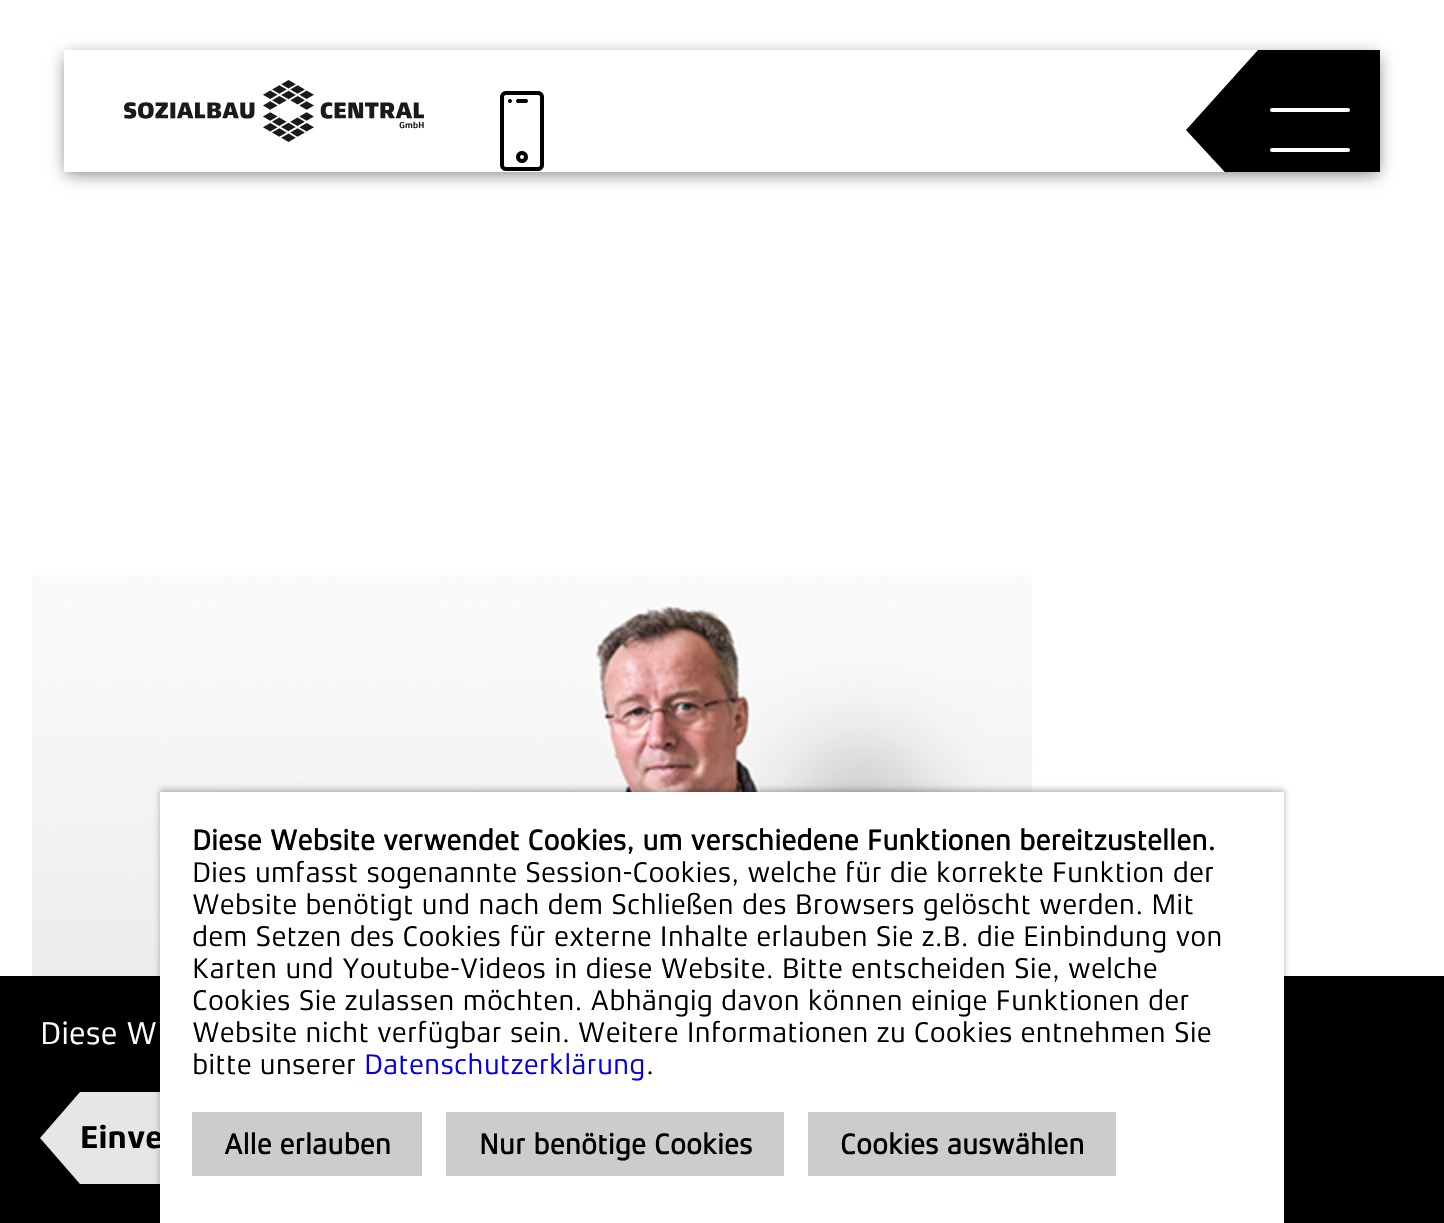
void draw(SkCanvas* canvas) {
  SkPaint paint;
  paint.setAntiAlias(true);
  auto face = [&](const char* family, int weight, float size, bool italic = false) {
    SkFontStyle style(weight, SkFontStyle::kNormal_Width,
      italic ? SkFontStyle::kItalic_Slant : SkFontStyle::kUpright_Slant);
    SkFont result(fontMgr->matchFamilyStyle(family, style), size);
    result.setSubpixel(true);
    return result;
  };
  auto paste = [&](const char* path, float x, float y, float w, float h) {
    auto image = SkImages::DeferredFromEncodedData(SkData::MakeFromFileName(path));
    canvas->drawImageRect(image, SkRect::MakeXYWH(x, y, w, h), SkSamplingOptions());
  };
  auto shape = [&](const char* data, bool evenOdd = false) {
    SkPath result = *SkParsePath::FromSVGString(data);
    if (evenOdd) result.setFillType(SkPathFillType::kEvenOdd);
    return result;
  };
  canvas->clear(0xffffffff);
  canvas->save();
  canvas->clipPath(shape("M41 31H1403V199H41ZM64 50H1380V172H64Z", true), true);
  paint.setColor(0x80000000);
  paint.setMaskFilter(SkMaskFilter::MakeBlur(kNormal_SkBlurStyle, 8));
  canvas->drawRect(SkRect::MakeXYWH(66, 56, 1312, 118), paint);
  paint.setMaskFilter(nullptr);
  canvas->restore();
  paste("img/1.png", 124, 80, 300, 62);
  paste("img/2.png", 500, 91, 44, 80);
  paint.setColor(0xff000000);
  canvas->drawRect(SkRect::MakeXYWH(1258, 50, 122, 122), paint);
  canvas->save();
  canvas->clipRect(SkRect::MakeXYWH(1186, 50, 194, 122));
  canvas->drawPath(shape("M1258 50V208L1186 130Z"), paint);
  canvas->restore();
  paint.setColor(0xffffffff);
  canvas->drawRoundRect(SkRect::MakeXYWH(1270, 108, 80, 4), 2, 2, paint);
  canvas->drawRoundRect(SkRect::MakeXYWH(1270, 148, 80, 4), 2, 2, paint);
  paste("img/3.png", 32, 575, 1000, 401);
  paint.setColor(0xff000000);
  canvas->drawRect(SkRect::MakeXYWH(0, 976, 1444, 247), paint);
  paint.setColor(0xffe6e6e6);
  canvas->drawRect(SkRect::MakeXYWH(80, 1092, 80, 92), paint);
  canvas->drawPath(shape("M80 1092V1184L40 1138Z"), paint);
  paint.setColor(0x4d000000);
  paint.setMaskFilter(SkMaskFilter::MakeBlur(kNormal_SkBlurStyle, 3));
  canvas->drawRect(SkRect::MakeXYWH(160, 790, 1124, 432), paint);
  paint.setMaskFilter(nullptr);
  auto f0 = face("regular", 400, 32);
  paint.setColor(0xffffffff);
  canvas->drawString("Diese W", 40, 1044, f0, paint);
  auto f1 = face("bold", 700, 32);
  paint.setColor(0xff000000);
  canvas->drawString("Einve", 80, 1148, f1, paint);
  paint.setColor(0xffffffff);
  canvas->drawRect(SkRect::MakeXYWH(160, 792, 1124, 431), paint);
  auto f2 = face("regular", 700, 28.8f);
  paint.setColor(0xff000000);
  canvas->drawString("Diese Website verwendet Cookies, um verschiedene Funktionen bereitzustellen.", 192, 850, f2, paint);
  auto f3 = face("regular", 400, 28.8f);
  {
    const struct { const char* s; float x, y; } items[] = {
      {"Dies umfasst sogenannte Session-Cookies, welche für die korrekte Funktion der", 192, 882},
      {"Website benötigt und nach dem Schließen des Browsers gelöscht werden. Mit", 192, 914},
      {"dem Setzen des Cookies für externe Inhalte erlauben Sie z.B. die Einbindung von", 192, 946},
      {"Karten und Youtube-Videos in diese Website. Bitte entscheiden Sie, welche", 192, 978},
      {"Cookies Sie zulassen möchten. Abhängig davon können einige Funktionen der", 192, 1010},
      {"Website nicht verfügbar sein. Weitere Informationen zu Cookies entnehmen Sie", 192, 1042},
      {"bitte unserer", 192, 1074},
    };
    for (auto [s, x, y] : items) {
      canvas->drawString(s, x, y, f3, paint);
    }
  }
  paint.setColor(0xff0000ee);
  canvas->drawString("Datenschutzerklärung", 364, 1074, f3, paint);
  paint.setColor(0xff000000);
  canvas->drawString(".", 646, 1074, f3, paint);
  paint.setColor(0xffcccccc);
  canvas->drawRect(SkRect::MakeXYWH(192, 1112, 230, 64), paint);
  paint.setColor(0xff000000);
  canvas->drawString("Alle erlauben", 224, 1154, f2, paint);
  paint.setColor(0xffcccccc);
  canvas->drawRect(SkRect::MakeXYWH(446, 1112, 338, 64), paint);
  paint.setColor(0xff000000);
  canvas->drawString("Nur benötige Cookies", 479, 1154, f2, paint);
  paint.setColor(0xffcccccc);
  canvas->drawRect(SkRect::MakeXYWH(808, 1112, 308, 64), paint);
  paint.setColor(0xff000000);
  canvas->drawString("Cookies auswählen", 840, 1154, f2, paint);
}
